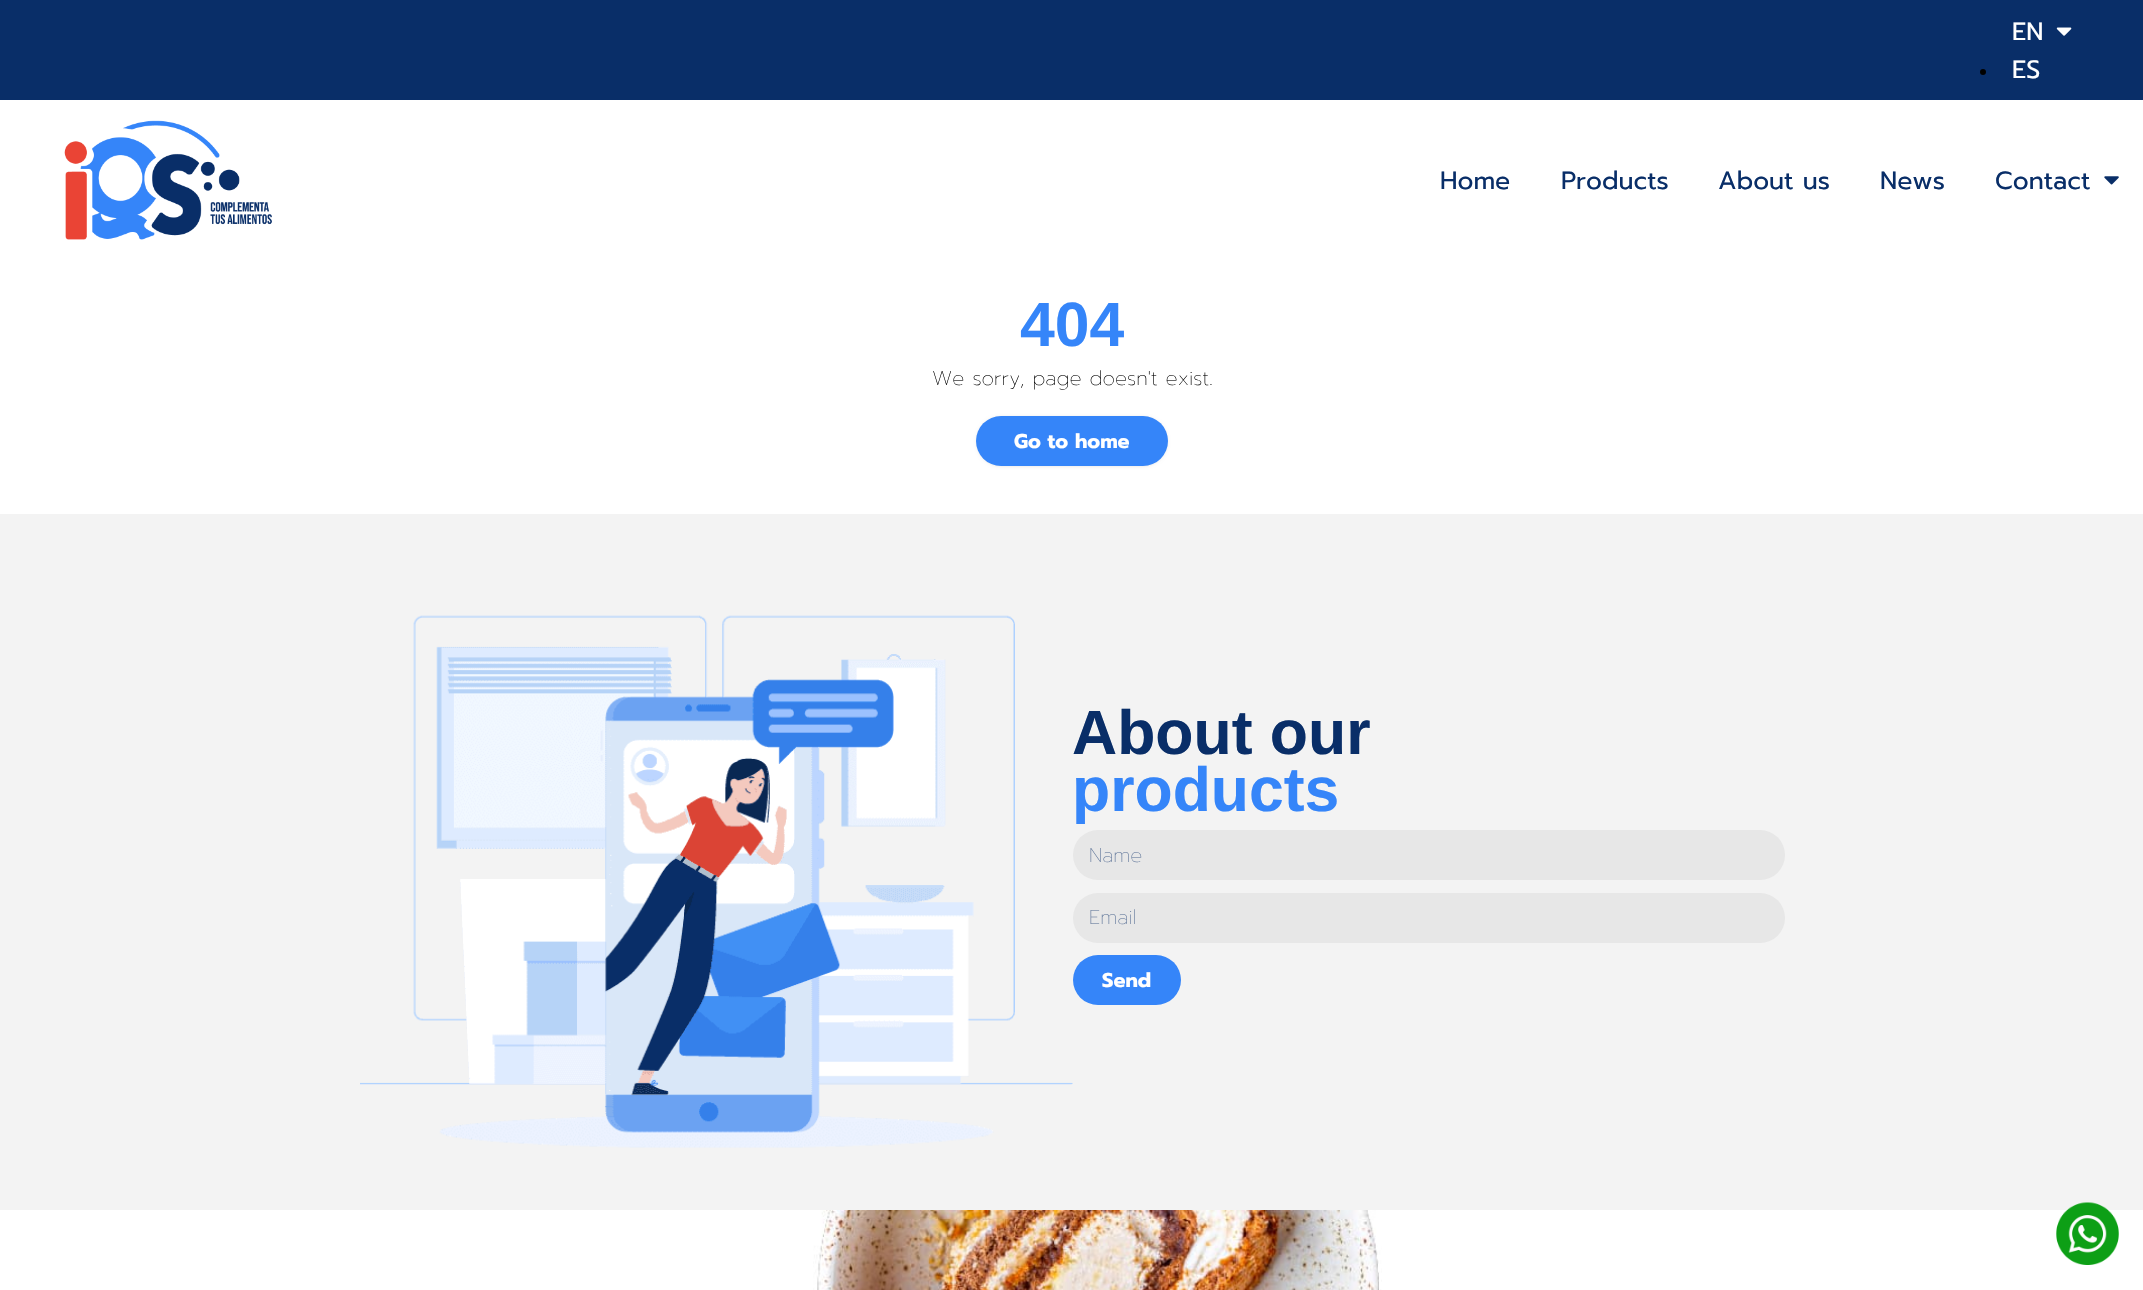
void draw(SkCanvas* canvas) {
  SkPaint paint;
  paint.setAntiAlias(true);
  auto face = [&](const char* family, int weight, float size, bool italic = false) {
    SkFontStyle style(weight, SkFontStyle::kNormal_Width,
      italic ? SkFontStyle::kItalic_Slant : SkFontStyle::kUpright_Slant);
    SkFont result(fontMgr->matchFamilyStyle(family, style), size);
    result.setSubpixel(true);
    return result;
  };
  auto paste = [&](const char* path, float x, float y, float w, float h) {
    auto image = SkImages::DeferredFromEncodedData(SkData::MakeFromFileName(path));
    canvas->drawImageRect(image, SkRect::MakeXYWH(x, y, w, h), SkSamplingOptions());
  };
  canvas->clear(0xffffffff);
  paint.setColor(0xff092e68);
  canvas->drawRect(SkRect::MakeXYWH(0, 0, 2143, 100), paint);
  paste("img/1.png", 2056, 27, 16, 9);
  paint.setColor(0xff000000);
  canvas->drawCircle(1983, 72, 3, paint);
  paste("img/2.png", 64, 120, 208, 120);
  paste("img/3.png", 2104, 176, 15, 9);
  paint.setColor(0x33000000);
  paint.setMaskFilter(SkMaskFilter::MakeBlur(kNormal_SkBlurStyle, 2));
  canvas->drawRoundRect(SkRect::MakeXYWH(978, 418, 188, 47), 23.5f, 23.5f, paint);
  paint.setMaskFilter(nullptr);
  paint.setColor(0xff3585f9);
  canvas->drawRoundRect(SkRect::MakeXYWH(976, 416, 192, 50), 25, 25, paint);
  paint.setColor(0xfff3f3f3);
  canvas->drawRect(SkRect::MakeXYWH(0, 514, 2143, 696), paint);
  paste("img/4.png", 360, 615, 713, 533);
  paint.setColor(0xffe7e7e7);
  canvas->drawRoundRect(SkRect::MakeXYWH(1073, 830, 712, 50), 25, 25, paint);
  canvas->drawRoundRect(SkRect::MakeXYWH(1073, 893, 712, 50), 25, 25, paint);
  paint.setColor(0xff3585f9);
  canvas->drawRoundRect(SkRect::MakeXYWH(1073, 955, 108, 50), 25, 25, paint);
  paste("img/5.png", 813, 1210, 569, 80);
  paste("img/6.png", 2056, 1202, 63, 63);
  auto f0 = face("Prompt", 400, 25);
  paint.setColor(0xffffffff);
  canvas->drawString("EN", 2012, 40, f0, paint);
  canvas->drawString("ES", 2012, 78, f0, paint);
  paint.setColor(0xff092e68);
  {
    const struct { const char* s; float x, y; } items[] = {
      {"Home", 1440, 189},
      {"Products", 1561, 189},
      {"About us", 1718, 189},
      {"News", 1880, 189},
      {"Contact", 1995, 189},
    };
    for (auto [s, x, y] : items) {
      canvas->drawString(s, x, y, f0, paint);
    }
  }
  auto f1 = face("Liberation Sans", 700, 62.5f);
  paint.setColor(0xff3585f9);
  canvas->drawString("404", 1020, 346, f1, paint);
  auto f2 = face("Prompt", 200, 20);
  paint.setColor(0xff000000);
  canvas->drawString("We sorry, page doesn't exist.", 932, 385, f2, paint);
  auto f3 = face("Prompt", 700, 20);
  paint.setColor(0xffffffff);
  canvas->drawString("Go to home", 1014, 448, f3, paint);
  paint.setColor(0xff092e68);
  canvas->drawString("About our", 1072, 754, f1, paint);
  paint.setColor(0xff3585f9);
  canvas->drawString("products", 1072, 811, f1, paint);
  paint.setColor(0xff62789b);
  canvas->drawString("Name", 1089, 862, f2, paint);
  canvas->drawString("Email", 1089, 924, f2, paint);
  paint.setColor(0xffffffff);
  canvas->drawString("Send", 1102, 987, f3, paint);
}
